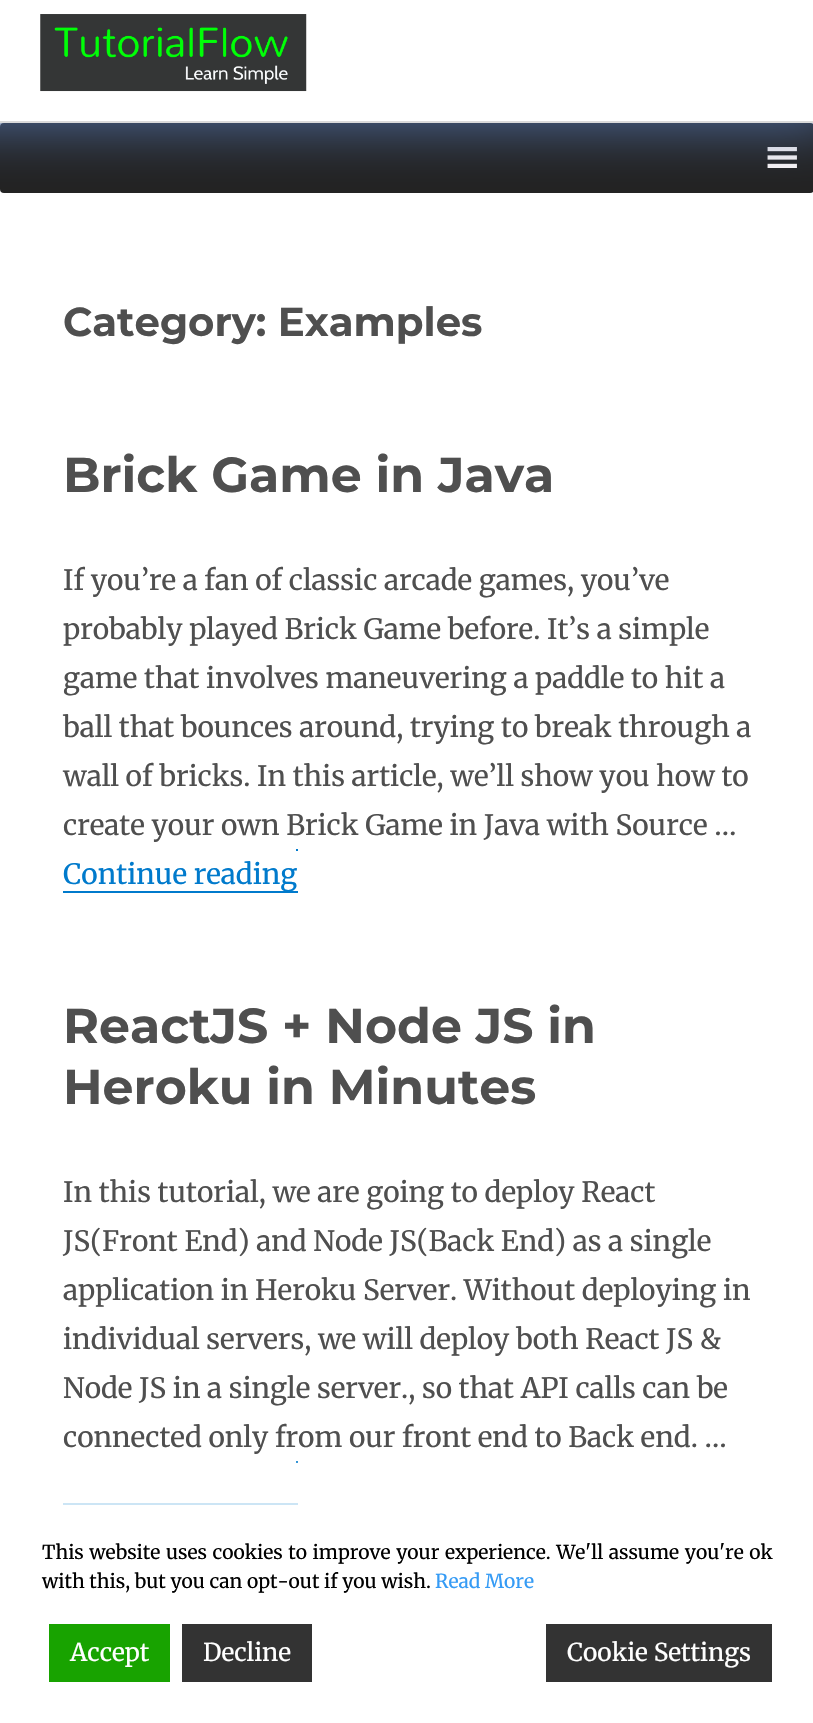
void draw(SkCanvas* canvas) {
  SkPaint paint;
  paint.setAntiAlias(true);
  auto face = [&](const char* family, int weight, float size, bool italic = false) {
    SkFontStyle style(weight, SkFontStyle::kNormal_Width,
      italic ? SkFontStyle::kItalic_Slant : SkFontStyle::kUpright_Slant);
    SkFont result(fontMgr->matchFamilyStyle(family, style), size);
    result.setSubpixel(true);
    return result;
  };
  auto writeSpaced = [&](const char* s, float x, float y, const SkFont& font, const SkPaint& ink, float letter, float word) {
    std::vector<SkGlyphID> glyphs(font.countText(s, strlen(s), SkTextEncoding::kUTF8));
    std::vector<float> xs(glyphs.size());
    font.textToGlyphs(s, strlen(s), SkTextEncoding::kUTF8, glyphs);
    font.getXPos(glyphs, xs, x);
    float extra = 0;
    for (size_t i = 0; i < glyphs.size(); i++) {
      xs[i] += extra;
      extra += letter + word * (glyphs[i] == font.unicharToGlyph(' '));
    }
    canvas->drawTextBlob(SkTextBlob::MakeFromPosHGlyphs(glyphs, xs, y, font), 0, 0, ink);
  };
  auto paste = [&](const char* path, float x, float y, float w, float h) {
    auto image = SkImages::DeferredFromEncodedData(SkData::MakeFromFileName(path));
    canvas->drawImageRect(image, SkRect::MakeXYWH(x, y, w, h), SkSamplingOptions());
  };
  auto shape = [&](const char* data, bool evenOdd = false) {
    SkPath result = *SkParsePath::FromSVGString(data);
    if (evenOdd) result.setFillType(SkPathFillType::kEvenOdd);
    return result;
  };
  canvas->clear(0xffffffff);
  paint.setColor(0xff222222);
  canvas->drawRoundRect(SkRect::MakeXYWH(0, 123, 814, 70), 4, 4, paint);
  paste("img/2.png", 767, 147, 30, 21);
  paint.setColor(0xff4e6a9c);
  paint.setMaskFilter(SkMaskFilter::MakeBlur(kNormal_SkBlurStyle, 29));
  canvas->drawRect(SkRect::MakeXYWH(-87, 39, 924, 87), paint);
  paint.setMaskFilter(nullptr);
  paint.setColor(0xffffffff);
  canvas->drawRect(SkRect::MakeXYWH(0, 0, 813, 121), paint);
  paint.setColor(0xffdadada);
  canvas->drawRect(SkRect::MakeXYWH(0, 121, 813, 2), paint);
  paste("img/1.png", 40, 14, 267, 78);
  paint.setColor(0xff007acc);
  canvas->drawPath(shape("M63 891V893H298V858V891Z"), paint);
  canvas->drawRect(SkRect::MakeXYWH(296, 849, 2, 2), paint);
  canvas->drawPath(shape("M296 1461V1463H298V1461Z"), paint);
  canvas->drawPath(shape("M63 1503V1505H298V1470V1503Z"), paint);
  canvas->save();
  canvas->clipPath(shape("M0 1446H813V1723H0ZM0 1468H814V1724H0Z", true), true);
  paint.setColor(0xffffffff);
  paint.setMaskFilter(SkMaskFilter::MakeBlur(kNormal_SkBlurStyle, 7));
  canvas->drawRect(SkRect::MakeXYWH(0, 1468, 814, 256), paint);
  paint.setMaskFilter(nullptr);
  canvas->restore();
  {
    const struct { float x, y, w, h; SkColor color; } items[] = {
      {63, 1503, 235, 2, 0xccffffff},
      {49, 1624, 121, 58, 0xff18a300},
      {182, 1624, 130, 58, 0xff333333},
      {546, 1624, 226, 58, 0xff333333},
    };
    for (auto [x, y, w, h, color] : items) {
      paint.setColor(color);
      canvas->drawRect(SkRect::MakeXYWH(x, y, w, h), paint);
    }
  }
  auto f0 = face("Montserrat", 700, 40.25f);
  paint.setColor(0xff4f4f4f);
  canvas->drawString("Category: Examples", 63, 336, f0, paint);
  auto f1 = face("Montserrat", 700, 49);
  canvas->drawString("Brick Game in Java", 63, 492, f1, paint);
  auto f2 = face("Merriweather", 400, 28);
  {
    const struct { const char* s; float x, y; } items[] = {
      {"If you’re a fan of classic arcade games, you’ve", 63, 590},
      {"probably played Brick Game before. It’s a simple", 63, 639},
      {"game that involves maneuvering a paddle to hit a", 63, 688},
      {"ball that bounces around, trying to break through a", 63, 737},
      {"wall of bricks. In this article, we’ll show you how to", 63, 786},
      {"create your own Brick Game in Java with Source …", 63, 835},
    };
    for (auto [s, x, y] : items) {
      canvas->drawString(s, x, y, f2, paint);
    }
  }
  paint.setColor(0xff007acc);
  canvas->drawString("Continue reading", 63, 884, f2, paint);
  paint.setColor(0xff4f4f4f);
  canvas->drawString("ReactJS + Node JS in", 63, 1043, f1, paint);
  canvas->drawString("Heroku in Minutes", 63, 1104, f1, paint);
  {
    const struct { const char* s; float x, y; } items[] = {
      {"In this tutorial, we are going to deploy React", 63, 1202},
      {"JS(Front End) and Node JS(Back End) as a single", 63, 1251},
      {"application in Heroku Server. Without deploying in", 63, 1300},
      {"individual servers, we will deploy both React JS &", 63, 1349},
      {"Node JS in a single server., so that API calls can be", 63, 1398},
      {"connected only from our front end to Back end. …", 63, 1447},
    };
    for (auto [s, x, y] : items) {
      canvas->drawString(s, x, y, f2, paint);
    }
  }
  auto f3 = face("Merriweather", 400, 19.25f);
  paint.setColor(0xff000000);
  writeSpaced("This website uses cookies to improve your experience. We'll assume you're ok", 42, 1559, f3, paint, 0, 1);
  canvas->drawString("with this, but you can opt-out if you wish.", 42, 1588, f3, paint);
  paint.setColor(0xff359bf5);
  canvas->drawString("Read More", 435, 1588, f3, paint);
  auto f4 = face("Merriweather", 400, 24.5f);
  paint.setColor(0xffffffff);
  {
    const struct { const char* s; float x, y; } items[] = {
      {"Accept", 70, 1661},
      {"Decline", 203, 1661},
      {"Cookie Settings", 567, 1661},
    };
    for (auto [s, x, y] : items) {
      canvas->drawString(s, x, y, f4, paint);
    }
  }
}
